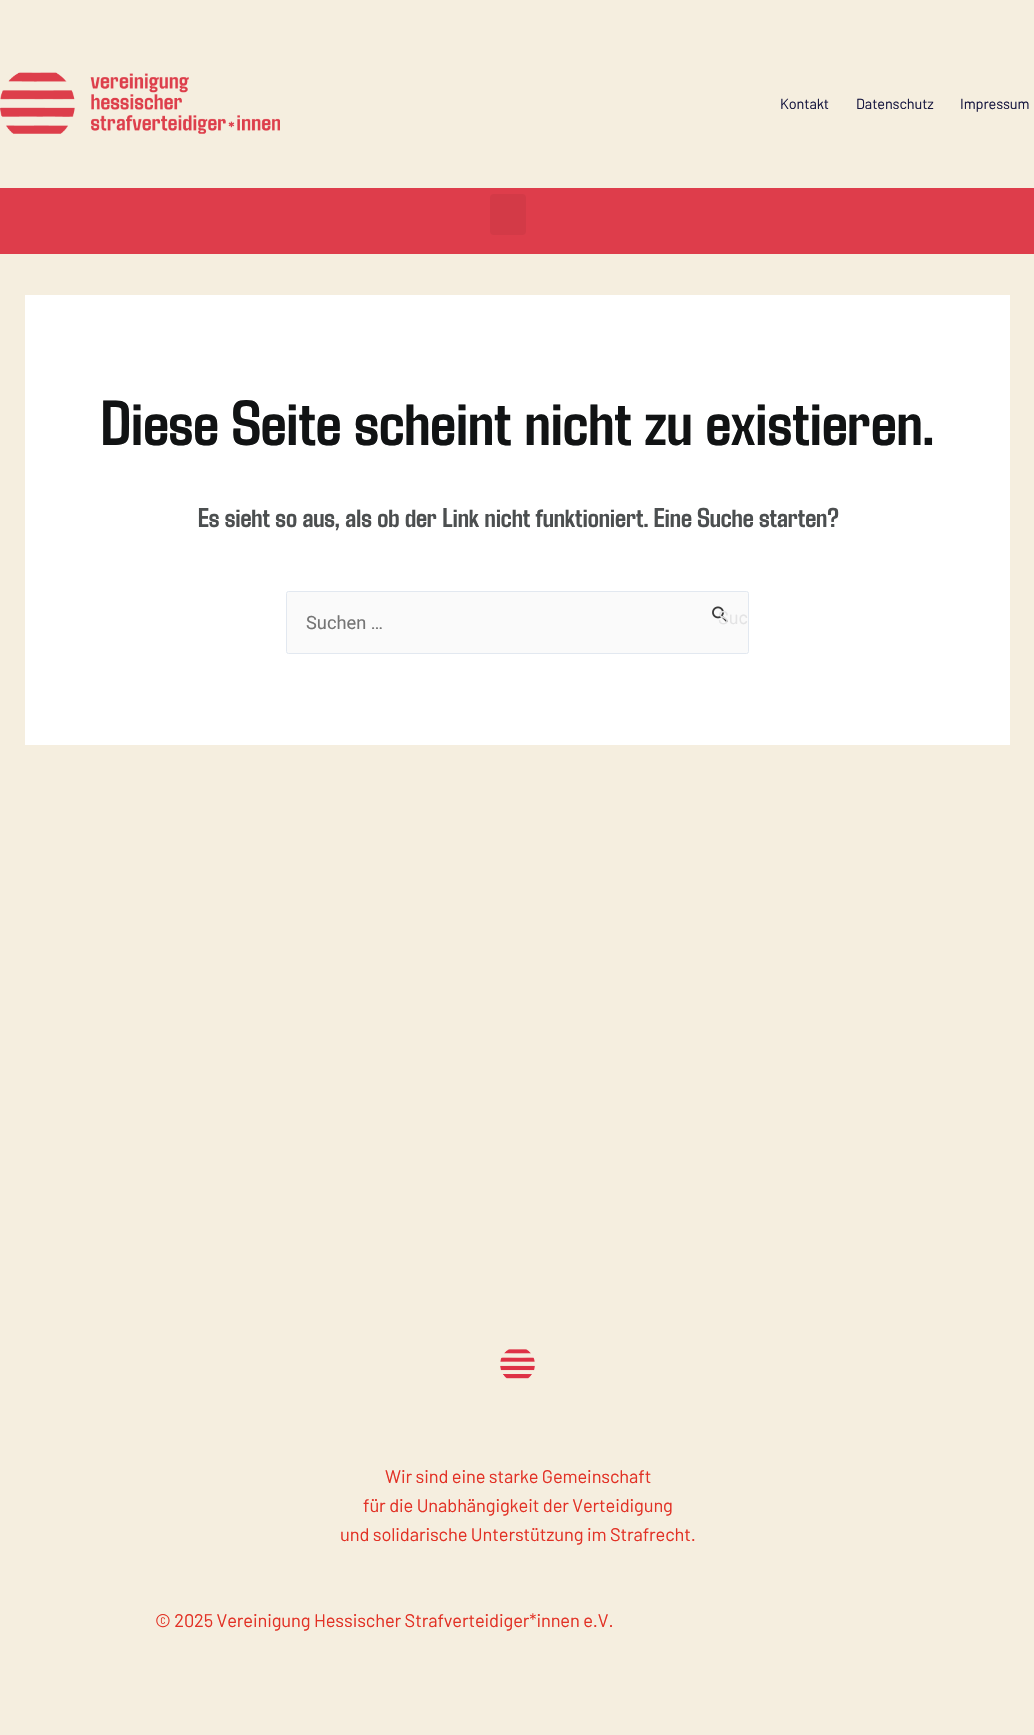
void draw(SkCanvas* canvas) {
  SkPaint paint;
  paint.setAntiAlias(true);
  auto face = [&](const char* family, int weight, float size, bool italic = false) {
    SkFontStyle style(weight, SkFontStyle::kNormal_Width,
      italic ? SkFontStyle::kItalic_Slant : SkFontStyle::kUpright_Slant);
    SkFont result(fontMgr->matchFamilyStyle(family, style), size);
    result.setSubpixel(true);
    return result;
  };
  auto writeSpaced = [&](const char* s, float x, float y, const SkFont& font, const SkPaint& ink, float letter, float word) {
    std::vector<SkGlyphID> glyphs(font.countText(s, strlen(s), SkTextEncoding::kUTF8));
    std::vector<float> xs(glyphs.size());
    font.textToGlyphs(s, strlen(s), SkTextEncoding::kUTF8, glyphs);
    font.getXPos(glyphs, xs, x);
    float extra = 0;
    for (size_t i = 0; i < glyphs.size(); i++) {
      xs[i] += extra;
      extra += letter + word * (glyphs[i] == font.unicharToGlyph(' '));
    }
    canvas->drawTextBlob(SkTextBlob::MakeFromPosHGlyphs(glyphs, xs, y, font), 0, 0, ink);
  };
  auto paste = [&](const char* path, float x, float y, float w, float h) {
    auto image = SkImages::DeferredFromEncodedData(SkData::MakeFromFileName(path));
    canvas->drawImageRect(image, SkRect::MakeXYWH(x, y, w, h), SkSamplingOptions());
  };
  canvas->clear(0xfff5eedf);
  paste("img/1.png", 0, 72, 280, 62);
  paint.setColor(0xffde3d4b);
  canvas->drawRect(SkRect::MakeXYWH(0, 188, 1034, 66), paint);
  paint.setColor(0xffd33a47);
  canvas->drawRoundRect(SkRect::MakeXYWH(490, 194, 36, 41), 4, 4, paint);
  paint.setColor(0xffffffff);
  canvas->drawRect(SkRect::MakeXYWH(25, 295, 985, 450), paint);
  paint.setColor(0xfffafafa);
  canvas->drawRoundRect(SkRect::MakeXYWH(286.5f, 591.5f, 462, 62), 2, 2, paint);
  paint.setStroke(true);
  paint.setStrokeWidth(1);
  paint.setColor(0xffe2e8f0);
  canvas->drawRoundRect(SkRect::MakeXYWH(286.5f, 591.5f, 462, 62), 2, 2, paint);
  paste("img/2.png", 712, 606, 16, 17);
  paste("img/3.png", 500, 1349, 35, 30);
  auto f0 = face("Barlow", 400, 14.5f);
  paint.setStroke(false);
  paint.setColor(0xff16163f);
  {
    const struct { const char* s; float x, y; } items[] = {
      {"Kontakt", 780, 109},
      {"Datenschutz", 856, 109},
      {"Impressum", 960, 109},
    };
    for (auto [s, x, y] : items) {
      writeSpaced(s, x, y, f0, paint, -0.12f, 0);
    }
  }
  auto f1 = face("Agdasima", 700, 63.8f);
  paint.setColor(0xff111314);
  writeSpaced("Diese Seite scheint nicht zu existieren.", 101, 445, f1, paint, -0.12f, 0);
  auto f2 = face("Agdasima", 700, 27.4f);
  paint.setColor(0xff4c4f50);
  writeSpaced("Es sieht so aus, als ob der Link nicht funktioniert. Eine Suche starten?", 198, 527, f2, paint, -0.12f, 0);
  auto f3 = face("Roboto", 400, 18.25f);
  paint.setColor(0xff757575);
  canvas->drawString("Suchen …", 306, 629, f3, paint);
  auto f4 = face("Barlow", 400, 18.25f);
  paint.setColor(0xffe3e3e4);
  canvas->drawString("Suc", 718, 624, f4, paint);
  paint.setColor(0xffe23125);
  {
    const struct { const char* s; float x, y; } items[] = {
      {"Wir sind eine starke Gemeinschaft", 385, 1483},
      {"für die Unabhängigkeit der Verteidigung", 363, 1512},
      {"und solidarische Unterstützung im Strafrecht.", 340, 1541},
      {"© 2025 Vereinigung Hessischer Strafverteidiger*innen e.V.", 155, 1627},
    };
    for (auto [s, x, y] : items) {
      writeSpaced(s, x, y, f4, paint, -0.12f, 0);
    }
  }
}
